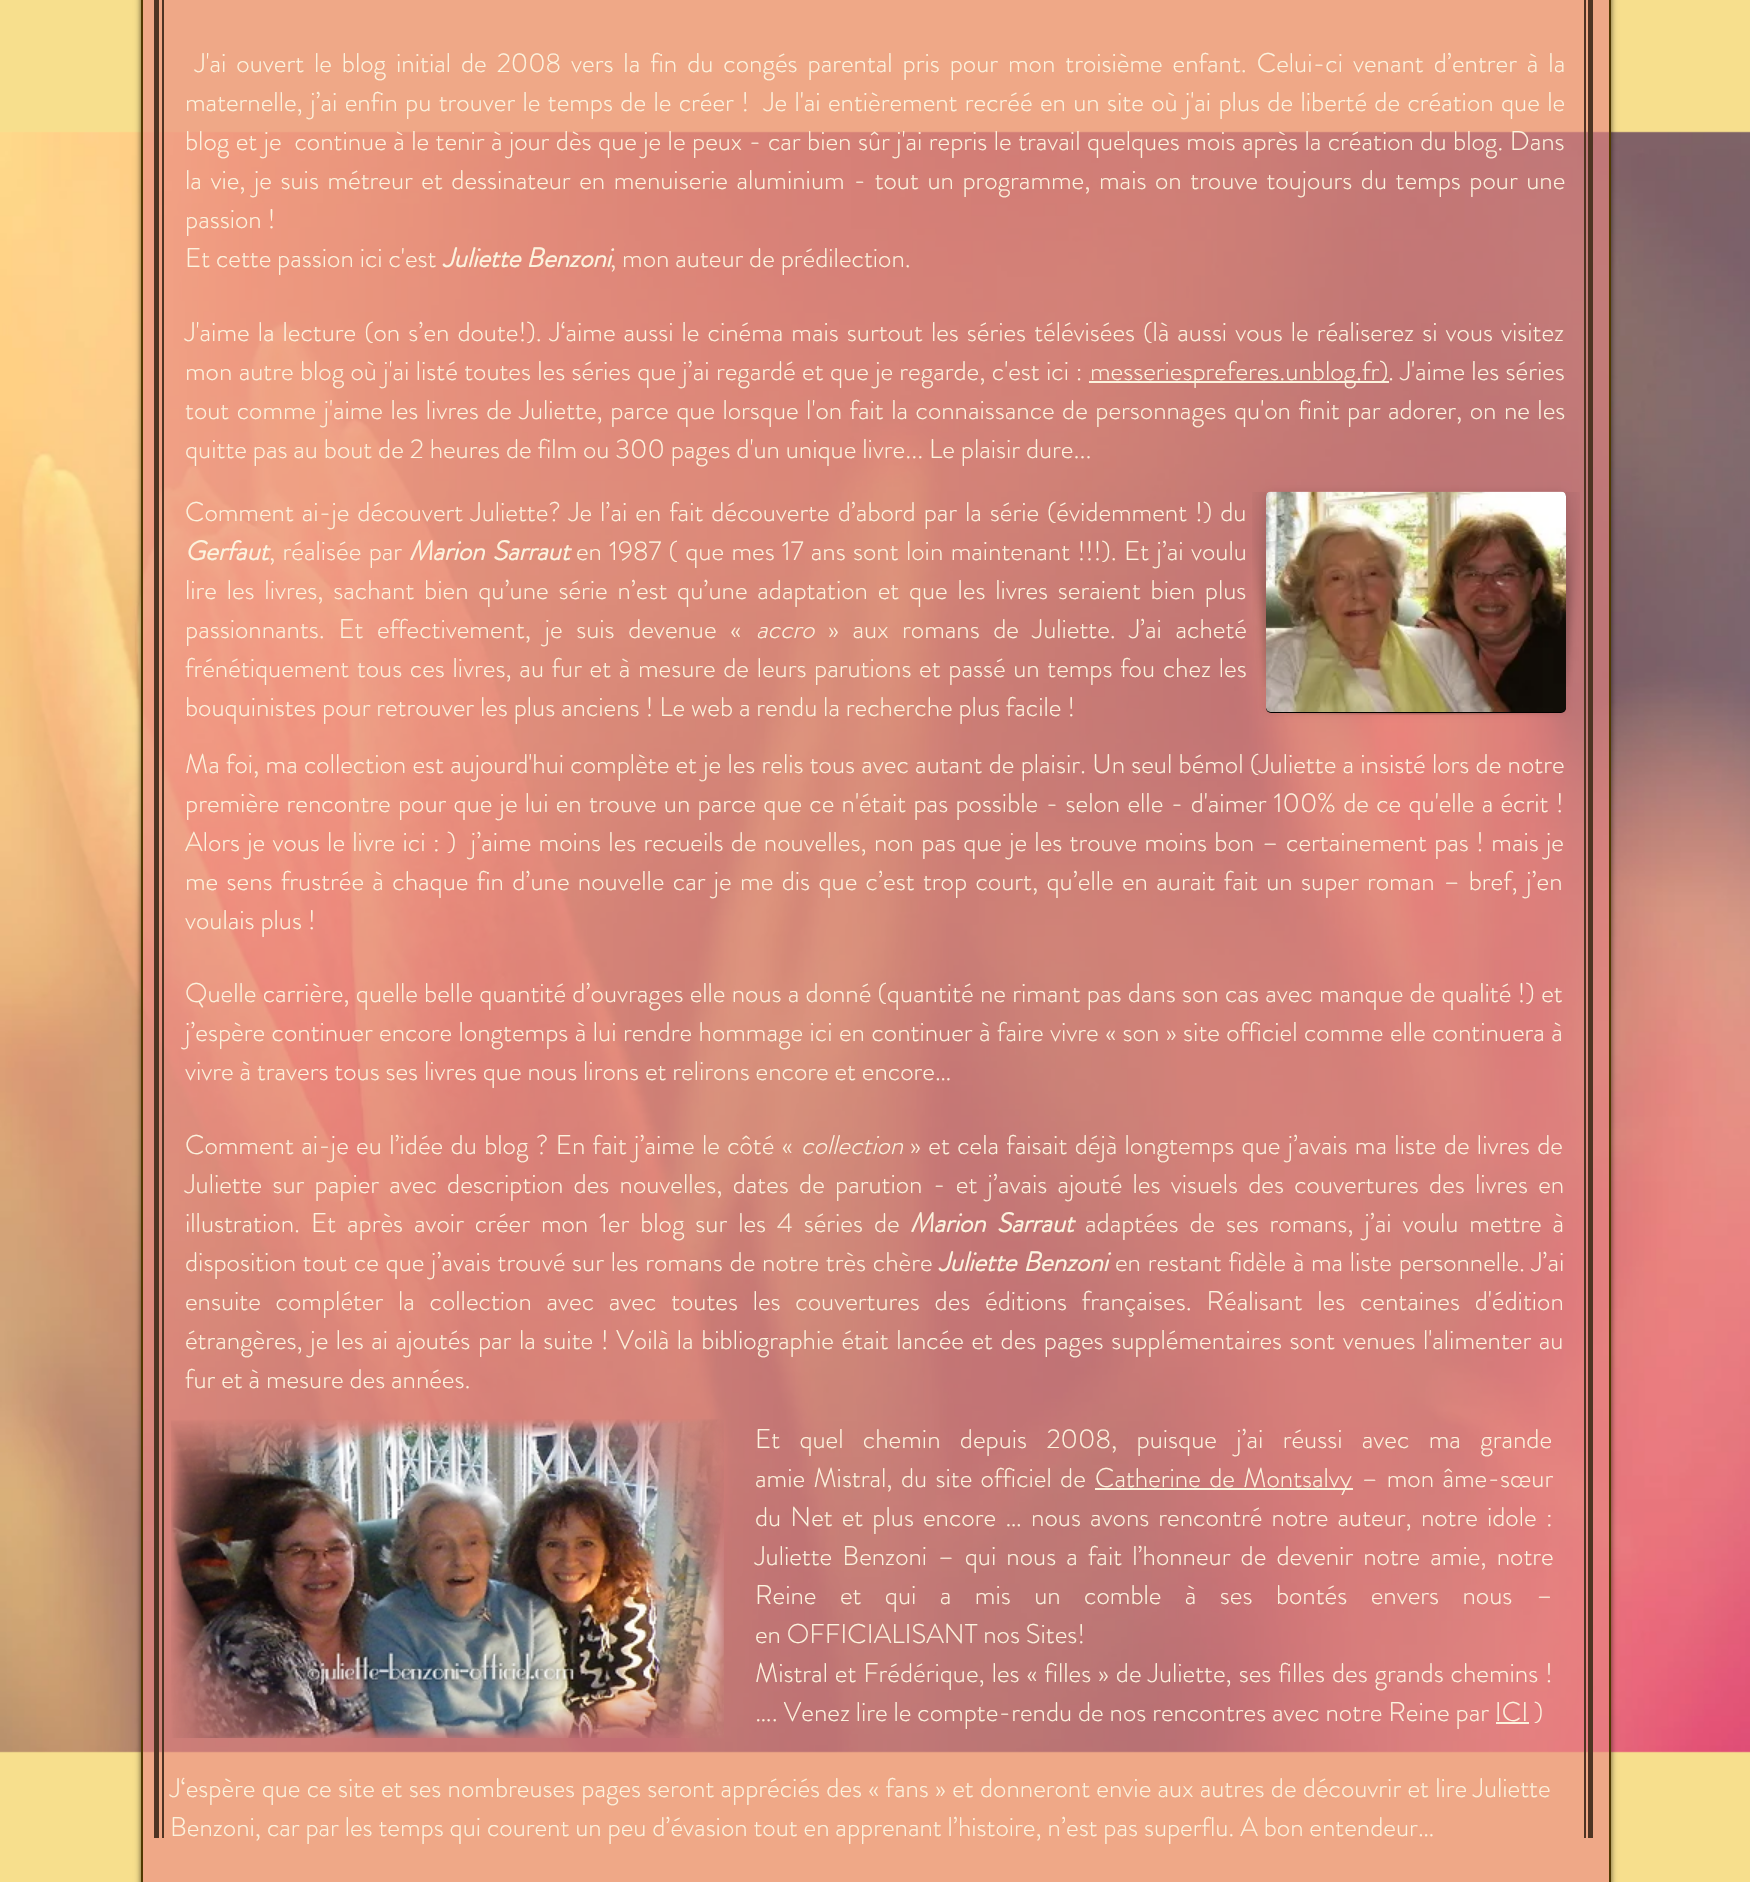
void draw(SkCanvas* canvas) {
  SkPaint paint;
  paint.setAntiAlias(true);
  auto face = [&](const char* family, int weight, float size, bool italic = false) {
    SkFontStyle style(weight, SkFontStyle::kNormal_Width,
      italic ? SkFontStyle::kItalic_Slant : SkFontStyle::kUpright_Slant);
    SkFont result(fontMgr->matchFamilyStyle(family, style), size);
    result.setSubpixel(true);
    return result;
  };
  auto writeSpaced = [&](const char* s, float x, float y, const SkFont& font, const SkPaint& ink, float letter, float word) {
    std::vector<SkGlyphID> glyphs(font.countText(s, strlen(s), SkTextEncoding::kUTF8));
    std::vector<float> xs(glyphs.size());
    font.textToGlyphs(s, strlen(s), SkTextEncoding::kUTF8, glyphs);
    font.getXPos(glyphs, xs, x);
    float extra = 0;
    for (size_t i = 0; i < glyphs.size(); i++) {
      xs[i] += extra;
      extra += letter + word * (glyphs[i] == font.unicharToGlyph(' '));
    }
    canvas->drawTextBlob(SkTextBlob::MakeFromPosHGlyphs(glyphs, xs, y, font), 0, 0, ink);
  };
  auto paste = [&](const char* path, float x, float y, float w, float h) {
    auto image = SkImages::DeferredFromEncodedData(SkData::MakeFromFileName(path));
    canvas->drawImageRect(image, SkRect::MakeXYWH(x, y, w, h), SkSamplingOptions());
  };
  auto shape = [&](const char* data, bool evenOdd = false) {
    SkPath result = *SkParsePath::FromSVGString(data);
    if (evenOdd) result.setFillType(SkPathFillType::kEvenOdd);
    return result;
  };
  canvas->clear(0xfff7df8d);
  paste("img/6.png", 0, 131, 1750, 1622);
  canvas->save();
  canvas->clipPath(shape("M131 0H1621V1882H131ZM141-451H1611V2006H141Z", true), true);
  paint.setColor(0x99000000);
  paint.setMaskFilter(SkMaskFilter::MakeBlur(kNormal_SkBlurStyle, 3));
  canvas->drawRect(SkRect::MakeXYWH(141, -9, 1470, 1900), paint);
  paint.setMaskFilter(nullptr);
  canvas->restore();
  paint.setColor(0x99ea8482);
  canvas->drawRect(SkRect::MakeXYWH(142, -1, 1468, 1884), paint);
  paint.setStroke(true);
  paint.setStrokeWidth(2);
  paint.setColor(0xff4f3900);
  canvas->drawRect(SkRect::MakeXYWH(142, -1, 1468, 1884), paint);
  paint.setStroke(false);
  {
    const struct { float x, y, w, h; SkColor color; } items[] = {
      {154, 0, 5, 1838, 0xff4d3423},
      {162, 0, 2, 1838, 0xff4d3423},
      {1089, 381, 300, 2, 0xfffcf3de},
      {1588, 0, 5, 1838, 0xff4d3423},
      {1584, 0, 2, 1838, 0xff4d3423},
    };
    for (auto [x, y, w, h, color] : items) {
      paint.setColor(color);
      canvas->drawRect(SkRect::MakeXYWH(x, y, w, h), paint);
    }
  }
  paint.setColor(0x1a000000);
  paint.setMaskFilter(SkMaskFilter::MakeBlur(kNormal_SkBlurStyle, 4));
  canvas->drawRoundRect(SkRect::MakeXYWH(1266, 492, 300, 221), 5, 5, paint);
  paint.setMaskFilter(nullptr);
  paint.setColor(0xff000000);
  canvas->drawRoundRect(SkRect::MakeXYWH(1266, 492, 300, 221), 5, 5, paint);
  paste("img/1.png", 1266, 491, 300, 221);
  paste("img/2.png", 1286, 713, 263, 2);
  paste("img/3.png", 1252, 492, 14, 195);
  paste("img/4.png", 1566, 492, 14, 195);
  paste("img/5.png", 171, 1419, 553, 319);
  paint.setColor(0xfffcf3de);
  canvas->drawRect(SkRect::MakeXYWH(1095, 1488, 258, 2), paint);
  canvas->drawRect(SkRect::MakeXYWH(1496, 1722, 33, 2), paint);
  auto f0 = face("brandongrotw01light", 300, 27);
  writeSpaced("J'ai ouvert le blog initial de 2008 vers la fin du congés parental pris pour mon troisième enfant. Celui-ci venant d’entrer à la", 195, 72, f0, paint, 0, 4.1f);
  writeSpaced("maternelle, j’ai enfin pu trouver le temps de le créer !  Je l'ai entièrement recréé en un site où j'ai plus de liberté de création que le", 185, 111, f0, paint, 0, 1.5f);
  writeSpaced("blog et je  continue à le tenir à jour dès que je le peux - car bien sûr j'ai repris le travail quelques mois après la création du blog. Dans", 185, 150, f0, paint, 0, 0.6f);
  writeSpaced("la vie, je suis métreur et dessinateur en menuiserie aluminium - tout un programme, mais on trouve toujours du temps pour une", 185, 189, f0, paint, 0, 2.7f);
  canvas->drawString("passion !", 185, 228, f0, paint);
  canvas->drawString("Et cette passion ici c'est", 185, 267, f0, paint);
  auto f1 = face("brandongrotw01light", 700, 27, true);
  canvas->drawString("Juliette Benzoni", 443, 267, f1, paint);
  canvas->drawString(", mon auteur de prédilection.", 610, 267, f0, paint);
  writeSpaced("J'aime la lecture (on s’en doute!). J‘aime aussi le cinéma mais surtout les séries télévisées (là aussi vous le réaliserez si vous visitez", 185, 341, f0, paint, 0, 2.2f);
  writeSpaced("mon autre blog où j'ai listé toutes les séries que j’ai regardé et que je regarde, c'est ici :", 185, 380, f0, paint, 0, 0.5f);
  canvas->drawString("messeriespreferes.unblog.fr)", 1090, 380, f0, paint);
  writeSpaced(". J'aime les séries", 1388, 380, f0, paint, 0, 0.5f);
  writeSpaced("tout comme j'aime les livres de Juliette, parce que lorsque l'on fait la connaissance de personnages qu'on finit par adorer, on ne les", 185, 419, f0, paint, 0, 1.6f);
  canvas->drawString("quitte pas au bout de 2 heures de film ou 300 pages d'un unique livre... Le plaisir dure...", 185, 458, f0, paint);
  writeSpaced("Comment ai-je découvert Juliette? Je l’ai en fait découverte d’abord par la série (évidemment !) du", 185, 521, f0, paint, 0, 2.1f);
  canvas->drawString("Gerfaut", 185, 560, f1, paint);
  writeSpaced(", réalisée par", 269, 560, f0, paint, 0, 1.5f);
  writeSpaced("Marion Sarraut", 409, 560, f1, paint, 0, 2);
  writeSpaced("en 1987 ( que mes 17 ans sont loin maintenant !!!). Et j’ai voulu", 576, 560, f0, paint, 0, 1.5f);
  writeSpaced("lire les livres, sachant bien qu’une série n’est qu’une adaptation et que les livres seraient bien plus", 185, 599, f0, paint, 0, 3.9f);
  writeSpaced("passionnants. Et effectivement, je suis devenue «", 185, 638, f0, paint, 0, 7.75f);
  auto f2 = face("brandongrotw01light", 300, 27, true);
  canvas->drawString("accro", 756, 638, f2, paint);
  writeSpaced("» aux romans de Juliette. J’ai acheté", 828, 638, f0, paint, 0, 7.75f);
  writeSpaced("frénétiquement tous ces livres, au fur et à mesure de leurs parutions et passé un temps fou chez les", 185, 677, f0, paint, 0, 1.8f);
  canvas->drawString("bouquinistes pour retrouver les plus anciens ! Le web a rendu la recherche plus facile !", 185, 716, f0, paint);
  writeSpaced("Ma foi, ma collection est aujourd'hui complète et je les relis tous avec autant de plaisir. Un seul bémol (Juliette a insisté lors de notre", 185, 773, f0, paint, 0, 0.4f);
  writeSpaced("première rencontre pour que je lui en trouve un parce que ce n'était pas possible - selon elle - d'aimer 100% de ce qu'elle a écrit !", 185, 812, f0, paint, 0, 1.4f);
  writeSpaced("Alors je vous le livre ici : )  j’aime moins les recueils de nouvelles, non pas que je les trouve moins bon – certainement pas ! mais je", 185, 851, f0, paint, 0, 1.4f);
  writeSpaced("me sens frustrée à chaque fin d’une nouvelle car je me dis que c’est trop court, qu’elle en aurait fait un super roman – bref, j’en", 185, 890, f0, paint, 0, 2.5f);
  canvas->drawString("voulais plus !", 185, 929, f0, paint);
  writeSpaced("Quelle carrière, quelle belle quantité d’ouvrages elle nous a donné (quantité ne rimant pas dans son cas avec manque de qualité !) et", 185, 1002, f0, paint, 0, 0.4f);
  writeSpaced("j’espère continuer encore longtemps à lui rendre hommage ici en continuer à faire vivre « son » site officiel comme elle continuera à", 185, 1041, f0, paint, 0, 0.6f);
  canvas->drawString("vivre à travers tous ses livres que nous lirons et relirons encore et encore…", 185, 1080, f0, paint);
  writeSpaced("Comment ai-je eu l’idée du blog ? En fait j’aime le côté «", 185, 1154, f0, paint, 0, 1.5f);
  canvas->drawString("collection", 801, 1154, f2, paint);
  writeSpaced("» et cela faisait déjà longtemps que j’avais ma liste de livres de", 910, 1154, f0, paint, 0, 1.5f);
  writeSpaced("Juliette sur papier avec description des nouvelles, dates de parution - et j’avais ajouté les visuels des couvertures des livres en", 185, 1193, f0, paint, 0, 4.4f);
  writeSpaced("illustration. Et après avoir créer mon 1er blog sur les 4 séries de", 185, 1232, f0, paint, 0, 5.1f);
  writeSpaced("Marion Sarraut", 910, 1232, f1, paint, 0, 5.1f);
  writeSpaced("adaptées de ses romans, j’ai voulu mettre à", 1085, 1232, f0, paint, 0, 5.1f);
  writeSpaced("disposition tout ce que j’avais trouvé sur les romans de notre très chère", 185, 1271, f0, paint, 0, 0.9f);
  writeSpaced("Juliette Benzoni", 939, 1271, f1, paint, 0, 0.9f);
  writeSpaced("en restant fidèle à ma liste personnelle. J’ai", 1115, 1271, f0, paint, 0, 0.9f);
  writeSpaced("ensuite compléter la collection avec avec toutes les couvertures des éditions françaises. Réalisant les centaines d'édition", 185, 1310, f0, paint, 0, 8.9f);
  writeSpaced("étrangères, je les ai ajoutés par la suite ! Voilà la bibliographie était lancée et des pages supplémentaires sont venues l'alimenter au", 185, 1349, f0, paint, 0, 1.7f);
  canvas->drawString("fur et à mesure des années.", 185, 1388, f0, paint);
  writeSpaced("Et quel chemin depuis 2008, puisque j’ai réussi avec ma grande", 755, 1448, f0, paint, 0, 13.5f);
  {
    const struct { const char* s; float x, y; } items[] = {
      {"amie Mistral, du site officiel de", 755, 1487},
      {"Catherine de Montsalvy", 1095, 1487},
      {"– mon âme-sœur", 1361, 1487},
    };
    for (auto [s, x, y] : items) {
      writeSpaced(s, x, y, f0, paint, 0, 2.5f);
    }
  }
  writeSpaced("du Net et plus encore … nous avons rencontré notre auteur, notre idole :", 755, 1526, f0, paint, 0, 3.25f);
  writeSpaced("Juliette Benzoni – qui nous a fait l’honneur de devenir notre amie, notre", 755, 1565, f0, paint, 0, 4.25f);
  writeSpaced("Reine et qui a mis un comble à ses bontés envers nous –", 755, 1604, f0, paint, 0, 17.6f);
  canvas->drawString("en OFFICIALISANT nos Sites!", 755, 1643, f0, paint);
  writeSpaced("Mistral et Frédérique, les « filles » de Juliette, ses filles des grands chemins !", 755, 1682, f0, paint, 0, 1);
  canvas->drawString("…. Venez lire le compte-rendu de nos rencontres avec notre Reine par ICI )", 755, 1721, f0, paint);
  writeSpaced("J‘espère que ce site et ses nombreuses pages seront appréciés des « fans » et donneront envie aux autres de découvrir et lire Juliette", 170, 1797, f0, paint, 0, 0.4f);
  canvas->drawString("Benzoni, car par les temps qui courent un peu d’évasion tout en apprenant l’histoire, n’est pas superflu. A bon entendeur…", 170, 1836, f0, paint);
}
